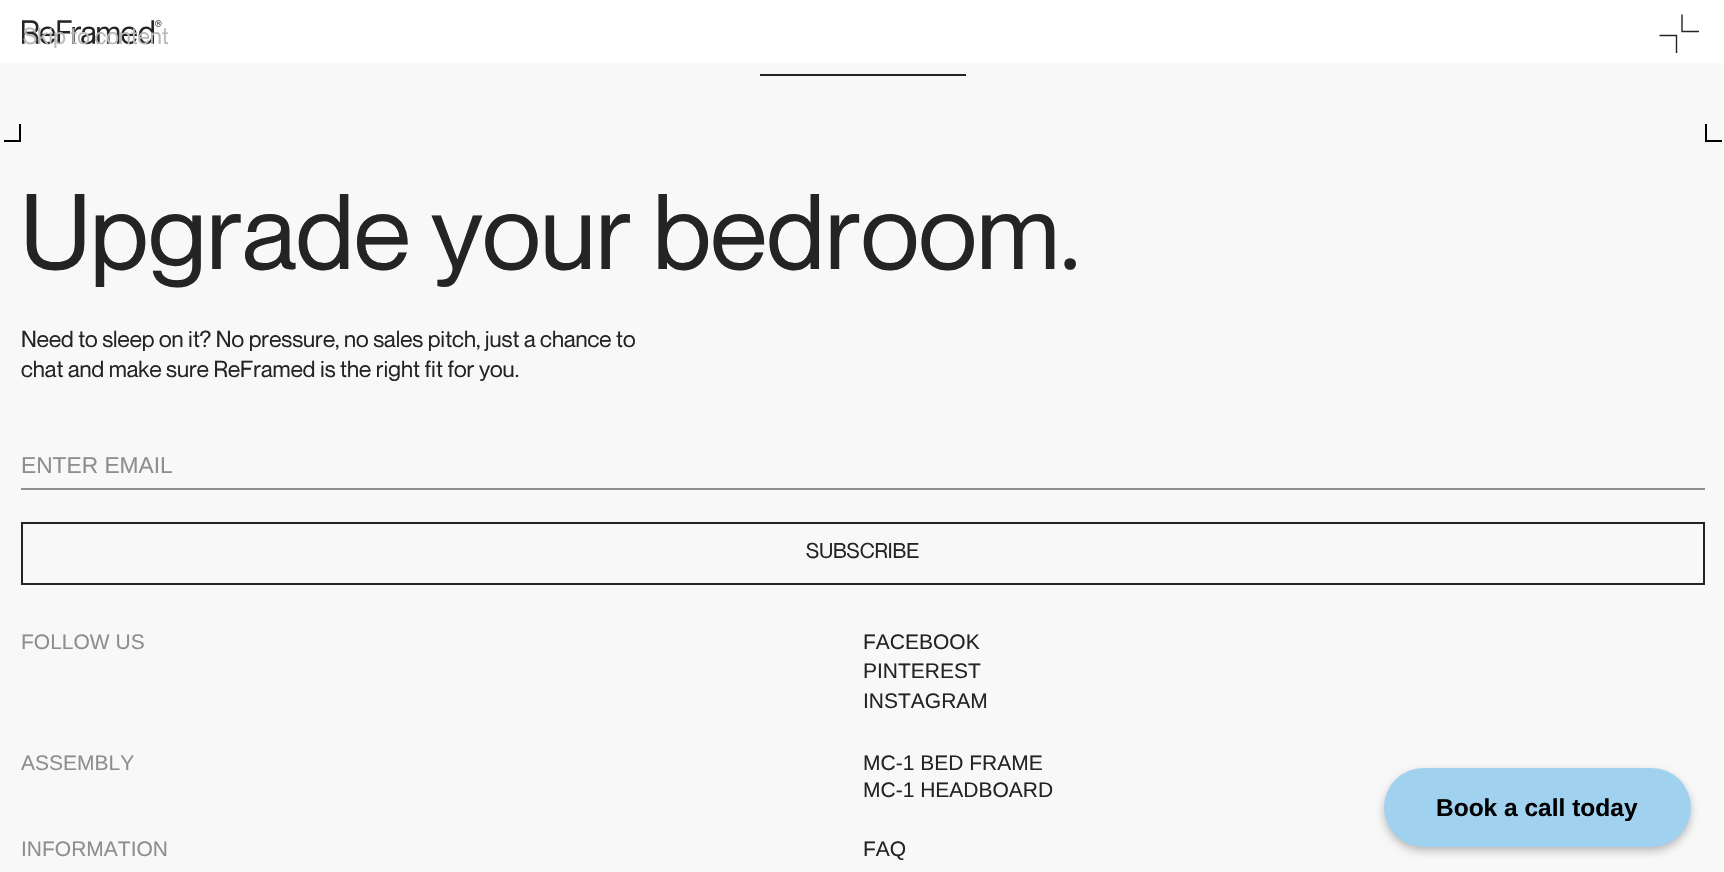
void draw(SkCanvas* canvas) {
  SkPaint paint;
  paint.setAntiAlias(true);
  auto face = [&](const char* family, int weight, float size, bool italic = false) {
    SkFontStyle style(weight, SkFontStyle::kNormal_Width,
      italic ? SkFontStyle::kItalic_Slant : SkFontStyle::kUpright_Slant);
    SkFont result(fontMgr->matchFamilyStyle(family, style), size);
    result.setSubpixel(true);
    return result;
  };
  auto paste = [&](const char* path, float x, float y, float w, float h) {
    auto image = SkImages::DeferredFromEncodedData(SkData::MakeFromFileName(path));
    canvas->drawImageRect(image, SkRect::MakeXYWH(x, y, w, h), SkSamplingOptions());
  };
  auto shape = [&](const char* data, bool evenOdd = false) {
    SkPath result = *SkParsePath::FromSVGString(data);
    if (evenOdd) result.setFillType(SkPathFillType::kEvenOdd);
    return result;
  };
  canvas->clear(0xfff8f8f8);
  paint.setColor(0xffffffff);
  canvas->drawRect(SkRect::MakeXYWH(0, 0, 1724, 63), paint);
  paste("img/1.png", 22, 20, 140, 25);
  paint.setStroke(true);
  paint.setStrokeWidth(1.4f);
  paint.setColor(0xff242424);
  canvas->drawPath(shape("M1659.5 35.5H1676.5V53M1699 31.5H1682V14.5"), paint);
  paint.setStroke(false);
  {
    const struct { float x, y, w, h; SkColor color; } items[] = {
      {760, 74, 206, 2, 0xff242424},
      {19, 124, 2, 18, 0xff000000},
      {4, 140, 17, 2, 0xff000000},
      {1705, 140, 17, 2, 0xff000000},
      {1705, 124, 2, 18, 0xff000000},
      {21, 488, 1684, 2, 0xff8e8e8e},
    };
    for (auto [x, y, w, h, color] : items) {
      paint.setColor(color);
      canvas->drawRect(SkRect::MakeXYWH(x, y, w, h), paint);
    }
  }
  paint.setStroke(true);
  paint.setStrokeWidth(2);
  paint.setColor(0xff242424);
  canvas->drawRect(SkRect::MakeXYWH(22, 523, 1682, 61), paint);
  paint.setStroke(false);
  paint.setColor(0x40000000);
  paint.setMaskFilter(SkMaskFilter::MakeBlur(kNormal_SkBlurStyle, 4.5f));
  canvas->drawRoundRect(SkRect::MakeXYWH(1384, 772, 307, 79), 39.5f, 39.5f, paint);
  paint.setMaskFilter(nullptr);
  paint.setColor(0xffa0d2f0);
  canvas->drawRoundRect(SkRect::MakeXYWH(1384, 768, 307, 79), 39.5f, 39.5f, paint);
  auto f0 = face("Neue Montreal", 400, 22.75f);
  paint.setColor(0xffb9b9b9);
  canvas->drawString("Skip to content", 23, 44, f0, paint);
  auto f1 = face("Neue Montreal", 400, 105);
  paint.setColor(0xff242424);
  canvas->drawString("Upgrade your bedroom.", 21, 269, f1, paint);
  canvas->drawString("Need to sleep on it? No pressure, no sales pitch, just a chance to", 21, 347, f0, paint);
  canvas->drawString("chat and make sure ReFramed is the right fit for you.", 21, 377, f0, paint);
  auto f2 = face("Liberation Sans", 400, 22.75f);
  paint.setColor(0xff8e8e8e);
  canvas->drawString("ENTER EMAIL", 21, 473, f2, paint);
  auto f3 = face("Neue Montreal", 400, 21);
  paint.setColor(0xff242424);
  canvas->drawString("SUBSCRIBE", 806, 558, f3, paint);
  auto f4 = face("Liberation Sans", 400, 21);
  paint.setColor(0xff8e8e8e);
  canvas->drawString("FOLLOW US", 21, 649, f4, paint);
  paint.setColor(0xff242424);
  {
    const struct { const char* s; float x, y; } items[] = {
      {"FACEBOOK", 863, 649},
      {"PINTEREST", 863, 678},
      {"INSTAGRAM", 863, 708},
    };
    for (auto [s, x, y] : items) {
      canvas->drawString(s, x, y, f4, paint);
    }
  }
  paint.setColor(0xff8e8e8e);
  canvas->drawString("ASSEMBLY", 21, 770, f4, paint);
  paint.setColor(0xff242424);
  canvas->drawString("MC-1 BED FRAME", 863, 770, f4, paint);
  canvas->drawString("MC-1 HEADBOARD", 863, 797, f4, paint);
  paint.setColor(0xff8e8e8e);
  canvas->drawString("INFORMATION", 21, 856, f4, paint);
  paint.setColor(0xff242424);
  canvas->drawString("FAQ", 863, 856, f4, paint);
  auto f5 = face("Liberation Sans", 700, 24.5f);
  paint.setColor(0xff000000);
  canvas->drawString("Book a call today", 1436, 816, f5, paint);
}
